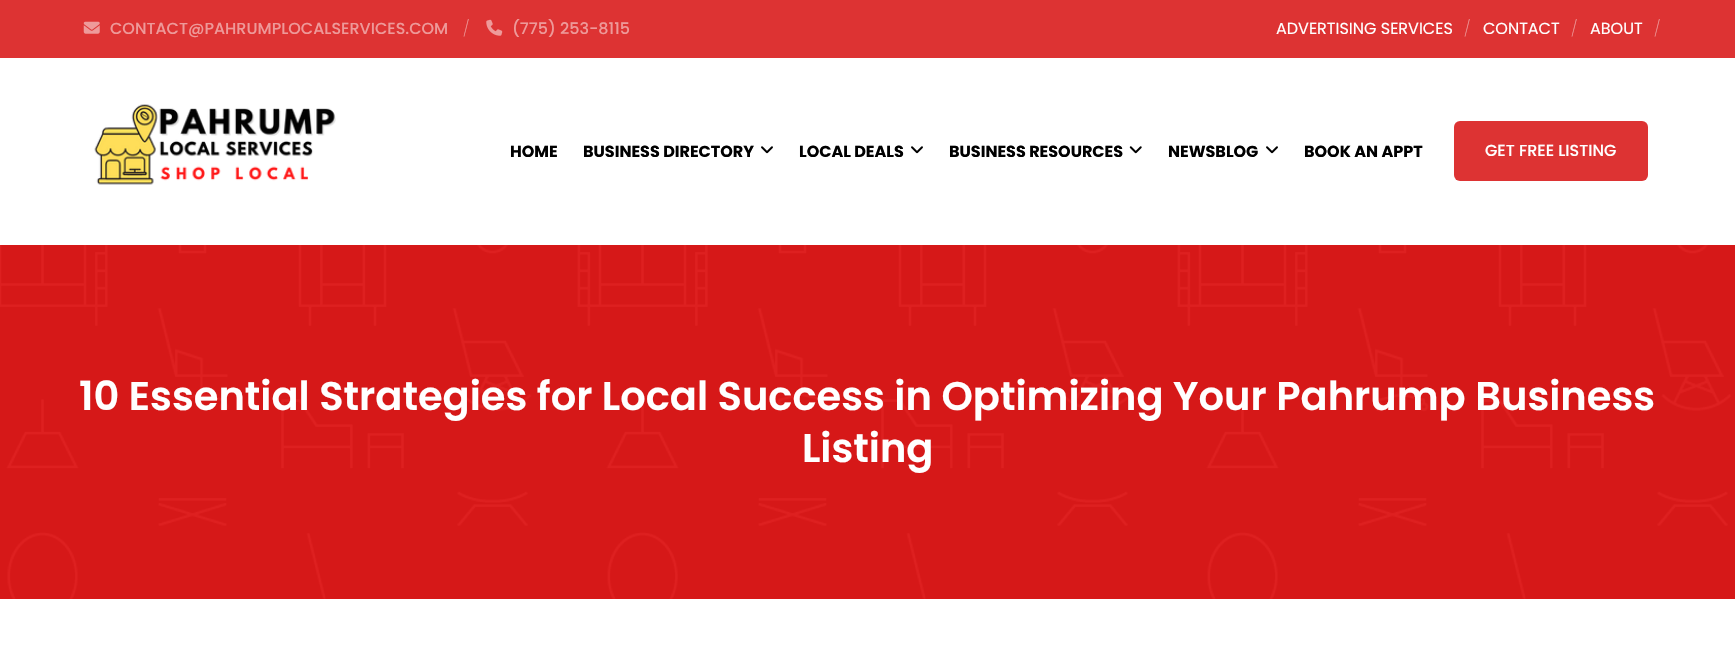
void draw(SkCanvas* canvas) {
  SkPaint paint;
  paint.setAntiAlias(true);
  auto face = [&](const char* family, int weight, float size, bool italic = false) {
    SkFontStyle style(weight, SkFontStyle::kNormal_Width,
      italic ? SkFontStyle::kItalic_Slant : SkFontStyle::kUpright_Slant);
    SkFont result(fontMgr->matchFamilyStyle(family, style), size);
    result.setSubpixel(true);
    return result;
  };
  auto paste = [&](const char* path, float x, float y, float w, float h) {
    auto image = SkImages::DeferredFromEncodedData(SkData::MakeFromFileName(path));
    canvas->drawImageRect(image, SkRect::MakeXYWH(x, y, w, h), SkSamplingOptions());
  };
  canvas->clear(0xffffffff);
  paint.setColor(0xffdd3333);
  canvas->drawRect(SkRect::MakeXYWH(0, 0, 1735, 58), paint);
  paste("img/1.png", 83, 21, 17, 13);
  paste("img/2.png", 486, 19, 17, 17);
  paste("img/3.png", 94, 104, 242, 81);
  paste("img/4.png", 761, 146, 12, 8);
  paste("img/4.png", 911, 146, 12, 8);
  paste("img/5.png", 1129, 146, 13, 8);
  paste("img/4.png", 1266, 146, 12, 8);
  canvas->drawRoundRect(SkRect::MakeXYWH(1454, 121, 194, 60), 6, 6, paint);
  paint.setColor(0xffdd1818);
  canvas->drawRect(SkRect::MakeXYWH(0, 245, 1735, 354), paint);
  paste("img/6.png", 0, 245, 1735, 354);
  auto f0 = face("Poppins", 500, 16);
  paint.setColor(0xffee9999);
  canvas->drawString("CONTACT@PAHRUMPLOCALSERVICES.COM", 110, 34, f0, paint);
  auto f1 = face("Poppins", 200, 16);
  canvas->drawString("/", 463, 34, f1, paint);
  canvas->drawString("(775) 253-8115", 512, 34, f0, paint);
  auto f2 = face("Poppins", 400, 16);
  paint.setColor(0xffffffff);
  canvas->drawString("ADVERTISING SERVICES", 1276, 34, f2, paint);
  paint.setColor(0xffee9999);
  canvas->drawString("/", 1464, 34, f1, paint);
  paint.setColor(0xffffffff);
  canvas->drawString("CONTACT", 1483, 34, f2, paint);
  paint.setColor(0xffee9999);
  canvas->drawString("/", 1571, 34, f1, paint);
  paint.setColor(0xffffffff);
  canvas->drawString("ABOUT", 1590, 34, f2, paint);
  paint.setColor(0xffee9999);
  canvas->drawString("/", 1654, 34, f1, paint);
  auto f3 = face("Poppins", 700, 16);
  paint.setColor(0xff000000);
  {
    const struct { const char* s; float x, y; } items[] = {
      {"HOME", 510, 157},
      {"BUSINESS DIRECTORY", 583, 157},
      {"LOCAL DEALS", 799, 157},
      {"BUSINESS RESOURCES", 949, 157},
      {"NEWSBLOG", 1168, 157},
      {"BOOK AN APPT", 1304, 157},
    };
    for (auto [s, x, y] : items) {
      canvas->drawString(s, x, y, f3, paint);
    }
  }
  paint.setColor(0xffffffff);
  canvas->drawString("GET FREE LISTING", 1485, 156, f0, paint);
  auto f4 = face("Poppins", 600, 40);
  canvas->drawString("10 Essential Strategies for Local Success in Optimizing Your Pahrump Business", 79, 410, f4, paint);
  canvas->drawString("Listing", 802, 462, f4, paint);
}
